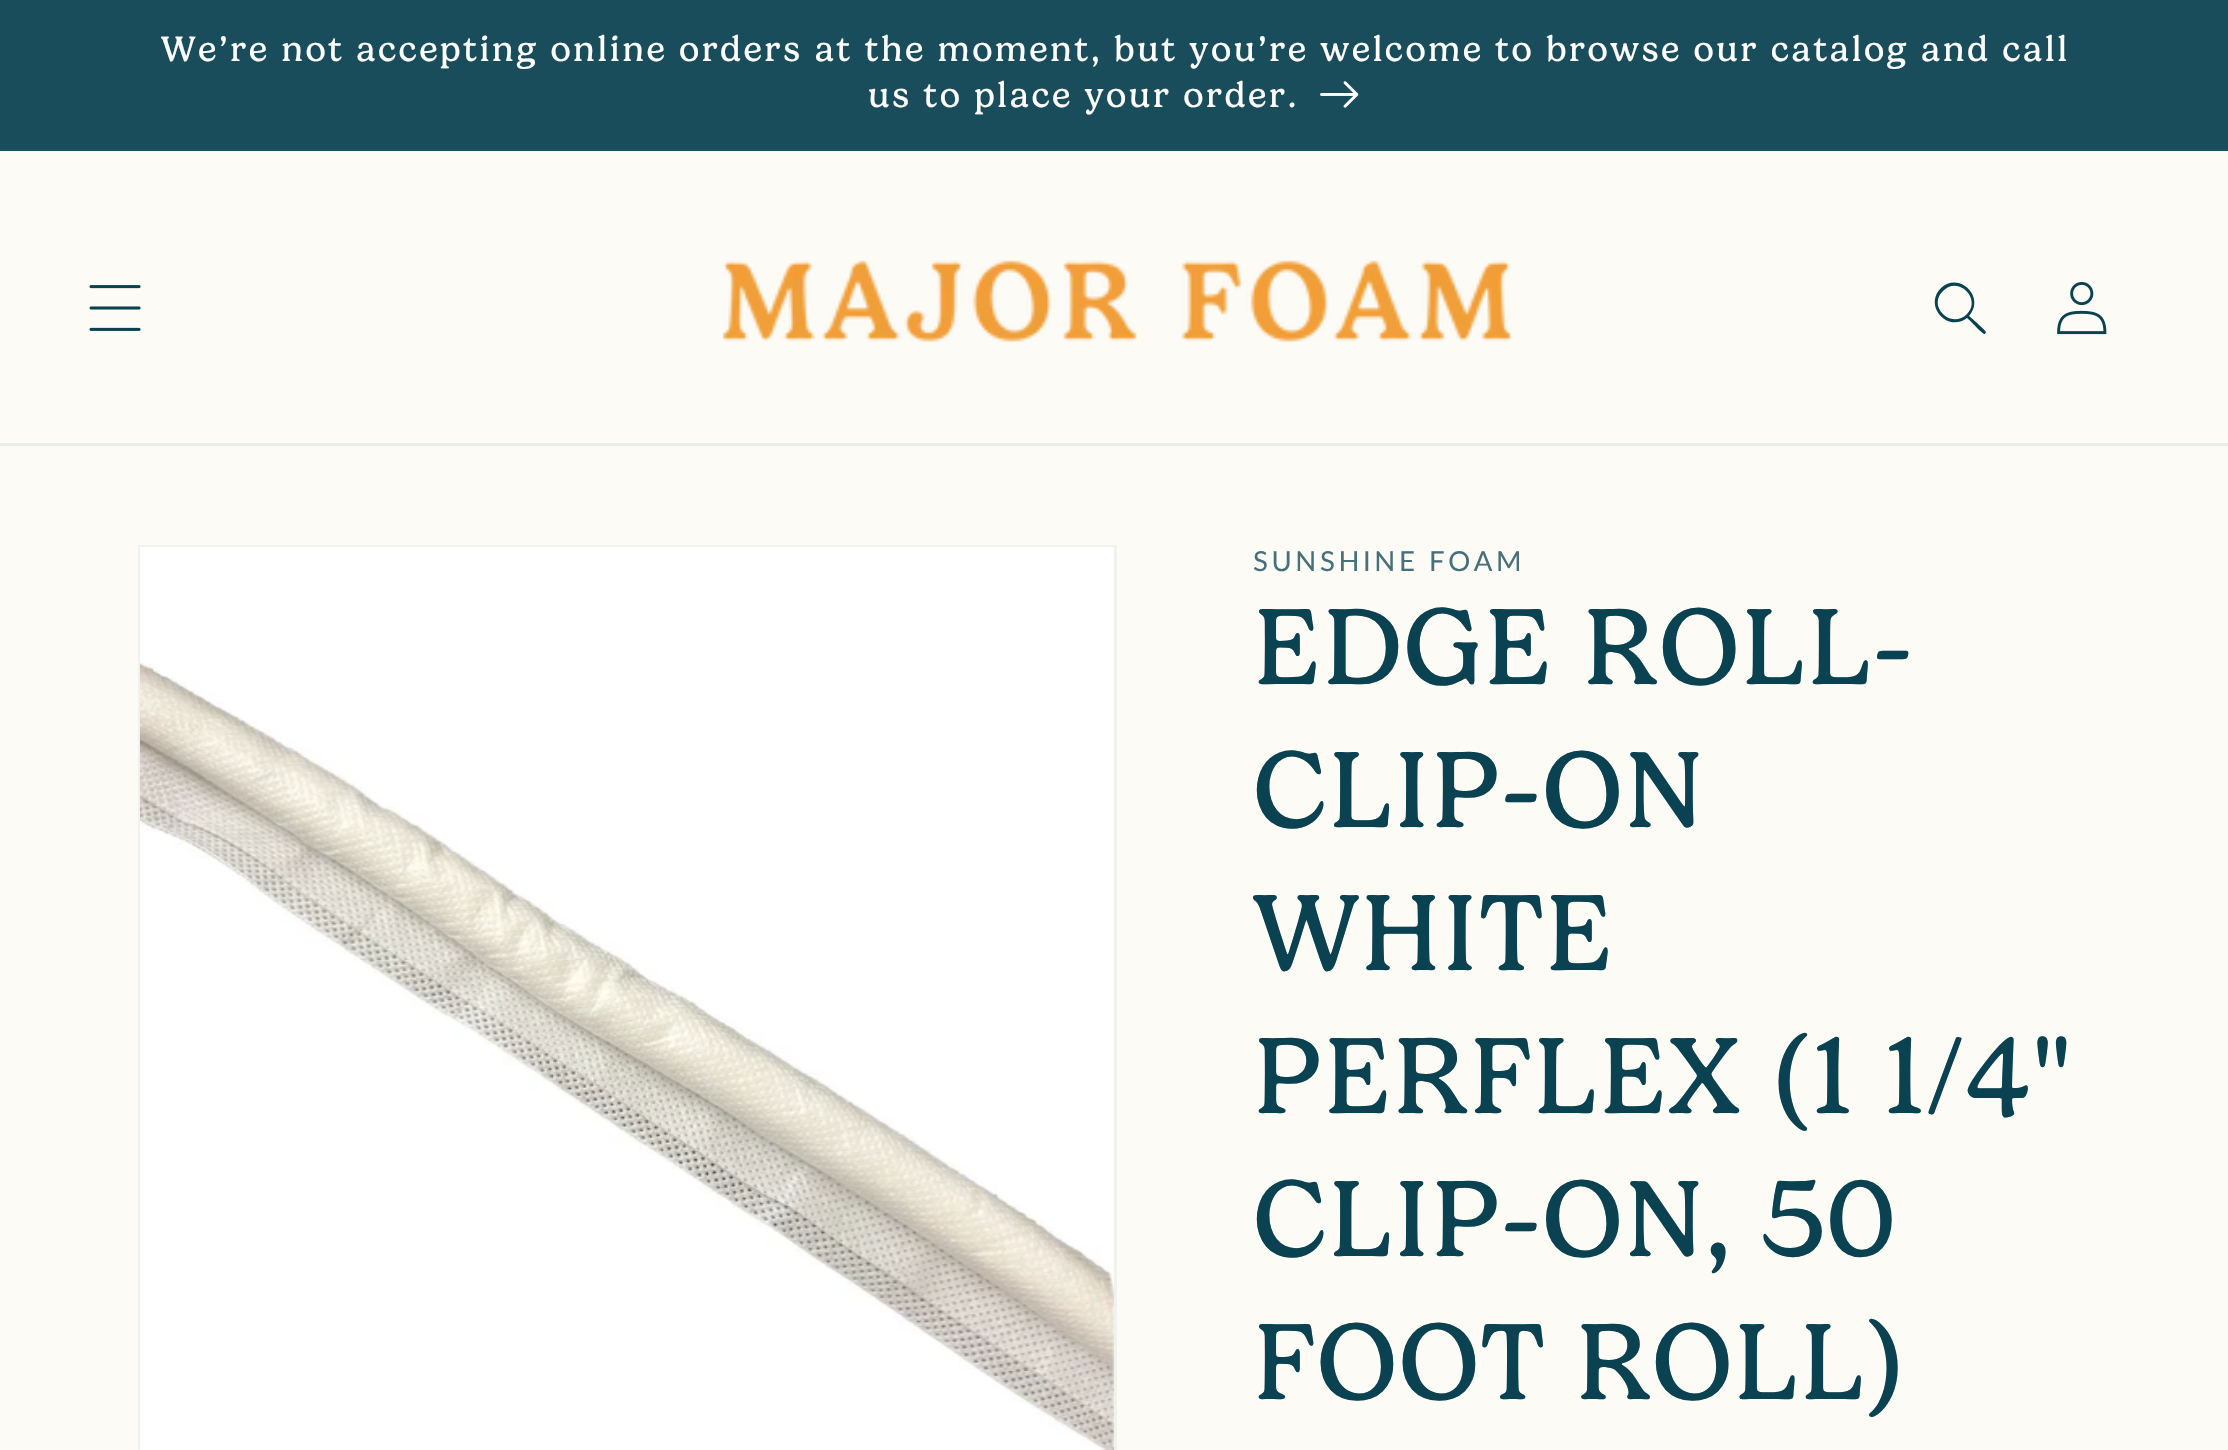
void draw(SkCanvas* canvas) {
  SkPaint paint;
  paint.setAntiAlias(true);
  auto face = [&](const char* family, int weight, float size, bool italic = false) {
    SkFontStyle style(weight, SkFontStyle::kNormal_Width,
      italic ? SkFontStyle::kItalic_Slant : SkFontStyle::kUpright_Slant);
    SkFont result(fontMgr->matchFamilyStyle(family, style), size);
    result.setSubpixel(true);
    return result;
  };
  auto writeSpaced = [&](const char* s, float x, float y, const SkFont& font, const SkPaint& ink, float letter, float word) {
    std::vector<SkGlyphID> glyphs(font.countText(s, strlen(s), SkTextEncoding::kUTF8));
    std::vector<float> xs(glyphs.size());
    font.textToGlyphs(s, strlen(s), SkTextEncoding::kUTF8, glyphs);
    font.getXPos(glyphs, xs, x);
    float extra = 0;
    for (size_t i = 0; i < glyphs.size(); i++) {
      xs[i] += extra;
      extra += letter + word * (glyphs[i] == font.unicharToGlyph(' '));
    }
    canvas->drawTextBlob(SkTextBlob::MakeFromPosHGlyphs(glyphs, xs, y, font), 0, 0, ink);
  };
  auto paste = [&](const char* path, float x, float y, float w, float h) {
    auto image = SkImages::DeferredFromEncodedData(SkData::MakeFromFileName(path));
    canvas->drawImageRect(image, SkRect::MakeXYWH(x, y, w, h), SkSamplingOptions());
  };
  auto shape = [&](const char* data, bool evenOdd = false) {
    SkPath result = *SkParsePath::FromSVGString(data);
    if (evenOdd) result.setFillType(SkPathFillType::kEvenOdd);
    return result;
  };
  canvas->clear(0xfffcfbf6);
  paint.setColor(0xff1e515f);
  canvas->drawRect(SkRect::MakeXYWH(0, 149, 2228, 2), paint);
  paint.setColor(0xff194d5b);
  canvas->drawRect(SkRect::MakeXYWH(0, 0, 2228, 149), paint);
  paste("img/1.png", 1320, 81, 39, 27);
  paint.setColor(0xffe9ece9);
  canvas->drawRect(SkRect::MakeXYWH(0, 443, 2228, 3), paint);
  paste("img/2.png", 89, 285, 52, 46);
  paste("img/3.png", 722, 260, 791, 82);
  paint.setColor(0xff0a4251);
  canvas->drawPath(shape("M1967 314C1951 330 1927 306 1943 291C1958 275 1982 299 1967 314ZM1967 318C1948 333 1923 306 1941 288C1959 271 1986 297 1969 316C1972 318 1986 331 1986 332L1985 334C1983 335 1970 320 1967 318Z", true), paint);
  paste("img/4.png", 2057, 281, 50, 54);
  paint.setStroke(true);
  paint.setStrokeWidth(3);
  paint.setColor(0xfff0f2ee);
  canvas->drawRect(SkRect::MakeXYWH(139.5f, 546.5f, 976, 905), paint);
  paste("img/5.png", 140, 547, 974, 903);
  auto f0 = face("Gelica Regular", 400, 35.75f);
  paint.setStroke(false);
  paint.setColor(0xffffffff);
  writeSpaced("We’re not accepting online orders at the moment, but you’re welcome to browse our catalog and call", 161, 61, f0, paint, 2.75f, 0);
  writeSpaced("us to place your order.", 868, 107, f0, paint, 2.75f, 0);
  auto f1 = face("Lato", 400, 27.5f);
  paint.setColor(0xff47707a);
  writeSpaced("SUNSHINE FOAM", 1253, 571, f1, paint, 3.6f, 0);
  auto f2 = face("Gelica Regular", 400, 110);
  paint.setColor(0xff0a4251);
  {
    const struct { const char* s; float x, y; } items[] = {
      {"EDGE ROLL-", 1253, 684},
      {"CLIP-ON", 1253, 827},
      {"WHITE", 1253, 970},
      {"PERFLEX (1 1/4\"", 1253, 1113},
      {"CLIP-ON, 50", 1253, 1256},
      {"FOOT ROLL)", 1253, 1399},
    };
    for (auto [s, x, y] : items) {
      writeSpaced(s, x, y, f2, paint, 1.6f, 0);
    }
  }
}
